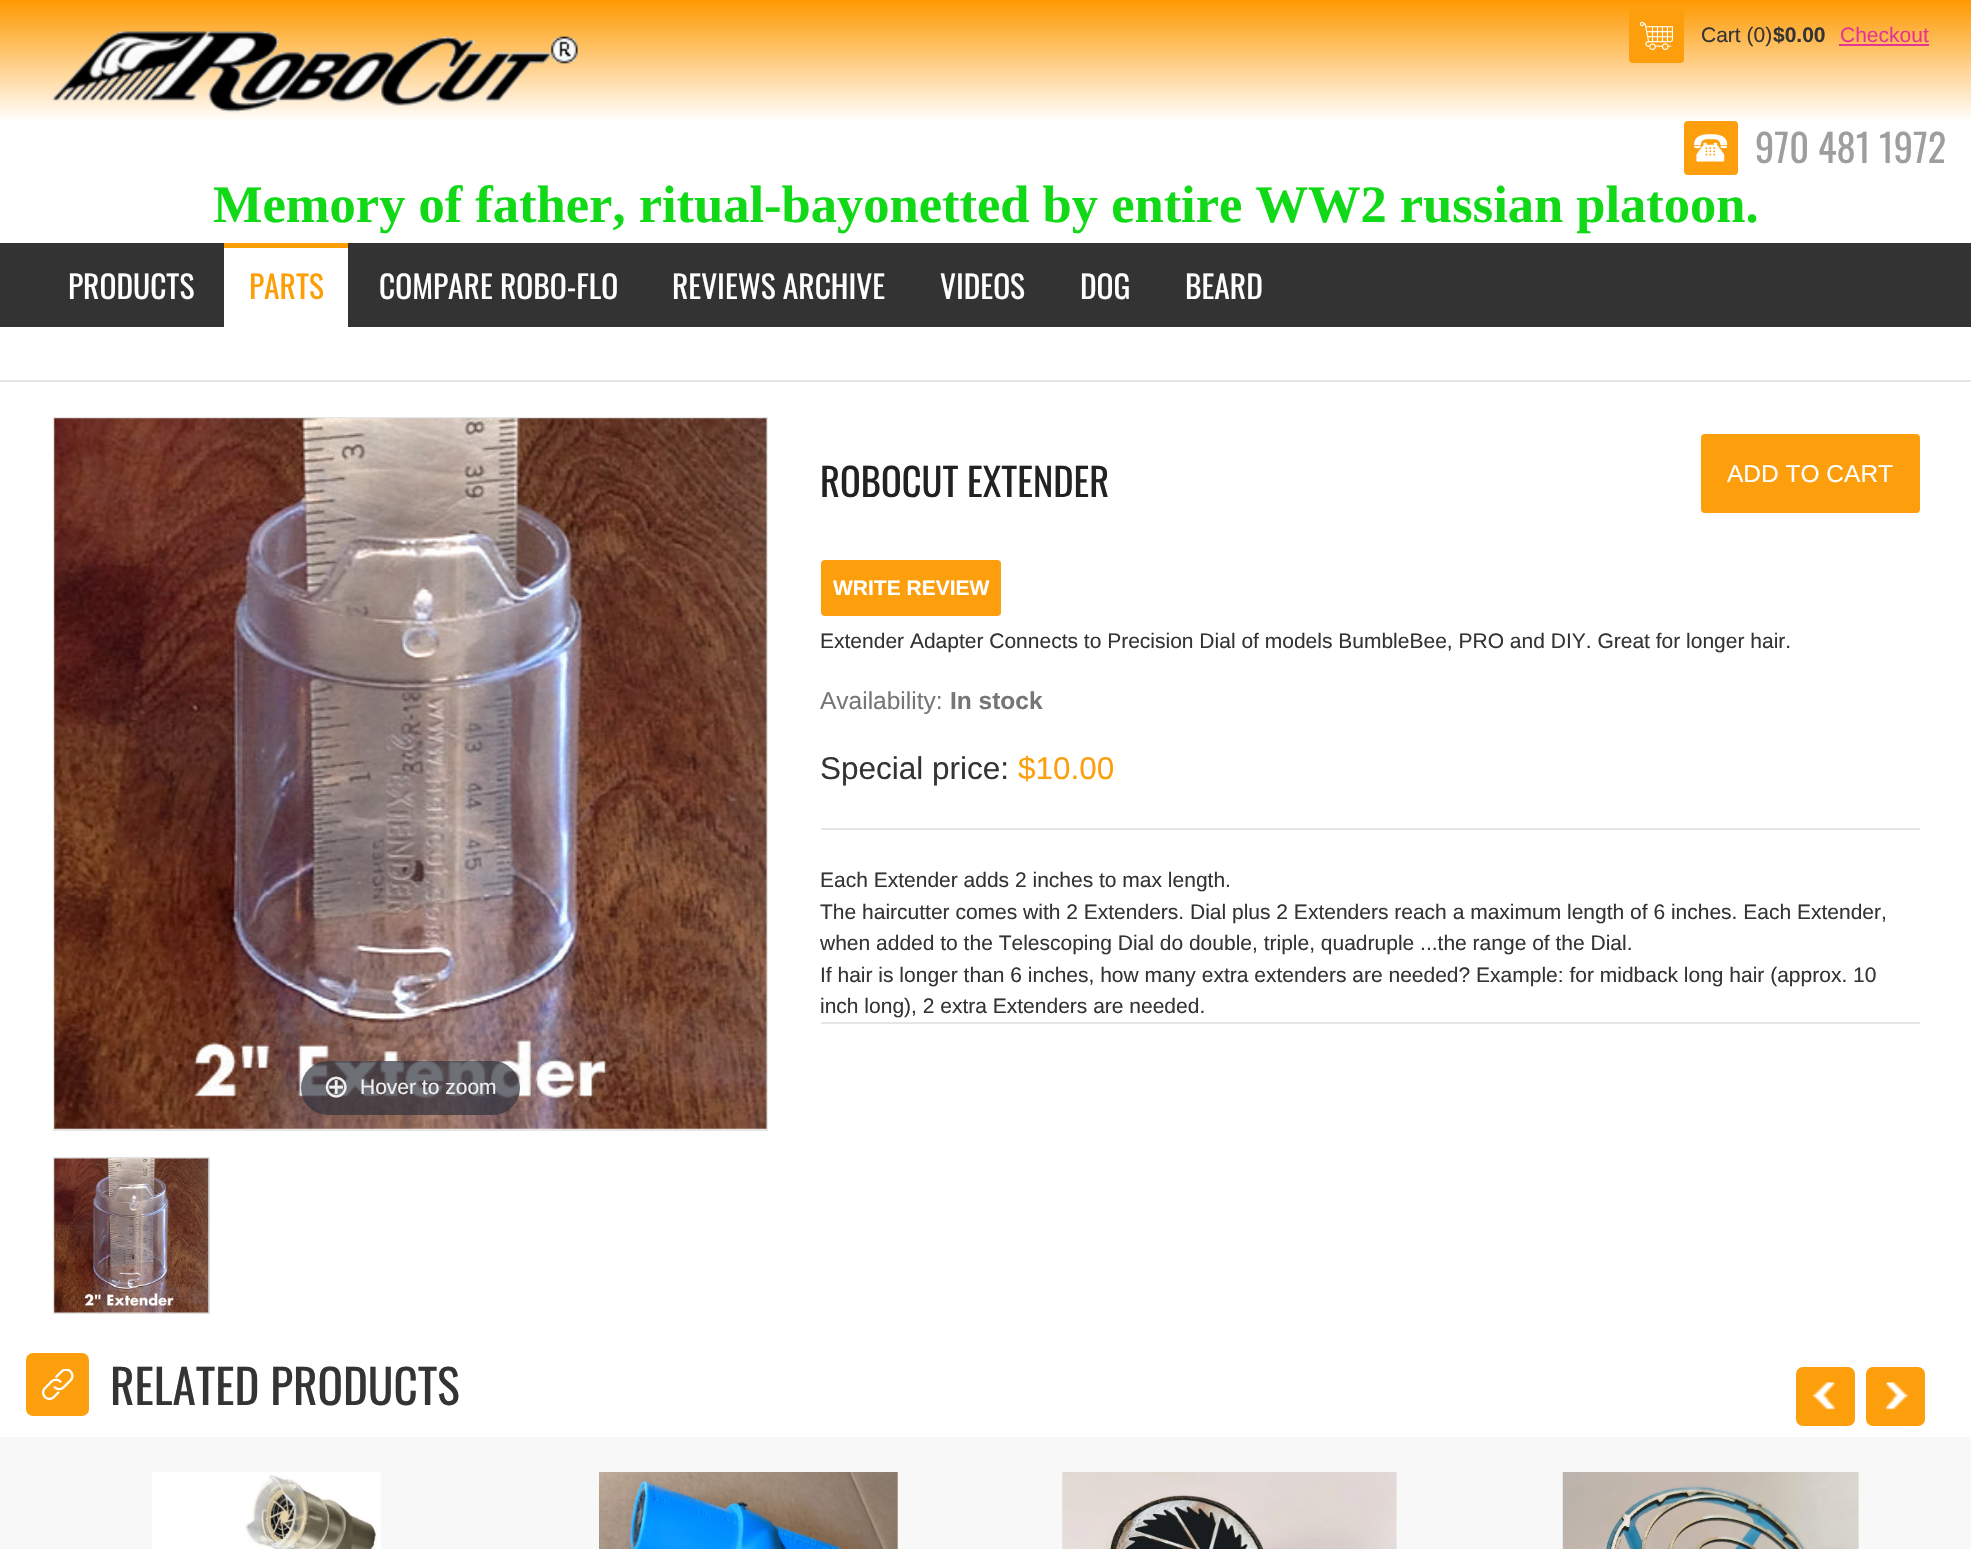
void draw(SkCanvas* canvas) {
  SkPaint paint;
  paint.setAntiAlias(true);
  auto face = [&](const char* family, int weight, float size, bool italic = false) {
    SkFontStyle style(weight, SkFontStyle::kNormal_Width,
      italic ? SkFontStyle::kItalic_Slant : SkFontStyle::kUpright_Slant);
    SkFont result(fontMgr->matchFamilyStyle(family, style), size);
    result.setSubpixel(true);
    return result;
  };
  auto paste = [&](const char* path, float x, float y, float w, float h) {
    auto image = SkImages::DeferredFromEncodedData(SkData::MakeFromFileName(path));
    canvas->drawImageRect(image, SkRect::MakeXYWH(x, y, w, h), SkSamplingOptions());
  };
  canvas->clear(0xffffffff);
  {
    const SkColor colors[] = {0xfffe9900, 0xffffffff, 0xffffffff};
    const float stops[] = {0, 0.5f, 1};
    const SkPoint ends[] = {{986, 0}, {986, 243}};
    paint.setShader(SkGradientShader::MakeLinear(ends, colors, stops, 3, SkTileMode::kClamp));
    paint.setAlpha(255);
  }
  canvas->drawRect(SkRect::MakeXYWH(0, 0, 1971, 120), paint);
  paste("img/1.png", 52, 31, 526, 82);
  paint.setShader(nullptr);
  paint.setColor(0xfffd9e0c);
  canvas->drawRoundRect(SkRect::MakeXYWH(1629, 9, 55, 54), 4, 4, paint);
  paste("img/2.png", 1640, 21, 33, 29);
  paint.setColor(0xffe53590);
  canvas->drawRect(SkRect::MakeXYWH(1839, 44, 90, 2), paint);
  paint.setColor(0xfffd9e0c);
  canvas->drawRoundRect(SkRect::MakeXYWH(1684, 121, 54, 54), 4, 4, paint);
  paste("img/3.png", 1694, 134, 33, 28);
  {
    const struct { float x, y, w, h; SkColor color; } items[] = {
      {0, 243, 1971, 84, 0xff333333},
      {224, 248, 124, 79, 0xffffffff},
      {224, 243, 124, 5, 0xfffd9e06},
      {0, 380, 1971, 2, 0xffe5e5e5},
    };
    for (auto [x, y, w, h, color] : items) {
      paint.setColor(color);
      canvas->drawRect(SkRect::MakeXYWH(x, y, w, h), paint);
    }
  }
  paint.setColor(0xfffd9e0c);
  canvas->drawRoundRect(SkRect::MakeXYWH(1701, 434, 219, 79), 4, 4, paint);
  canvas->drawRoundRect(SkRect::MakeXYWH(821, 560, 180, 56), 4, 4, paint);
  paint.setColor(0xffe5e5e5);
  canvas->drawRect(SkRect::MakeXYWH(821, 828, 1099, 2), paint);
  canvas->drawRect(SkRect::MakeXYWH(821, 1022, 1099, 2), paint);
  paint.setStroke(true);
  paint.setStrokeWidth(2);
  canvas->drawRect(SkRect::MakeXYWH(54, 418, 713, 712), paint);
  paste("img/4.png", 54, 418, 713, 711);
  paint.setStroke(false);
  paint.setColor(0xb331333d);
  canvas->drawRoundRect(SkRect::MakeXYWH(301, 1061, 219, 54), 27, 27, paint);
  paint.setStroke(true);
  paint.setColor(0xffe1e1e1);
  canvas->drawRect(SkRect::MakeXYWH(54, 1158, 155, 155), paint);
  paste("img/5.png", 54, 1158, 155, 155);
  paint.setStroke(false);
  paint.setColor(0xfffd9e0c);
  canvas->drawRoundRect(SkRect::MakeXYWH(26, 1353, 63, 63), 7, 7, paint);
  paste("img/6.png", 42, 1369, 32, 31);
  paint.setColor(0xfff8f8f8);
  canvas->drawRect(SkRect::MakeXYWH(0, 1437, 1971, 112), paint);
  paint.setColor(0xfffd9e0c);
  canvas->drawRoundRect(SkRect::MakeXYWH(1796, 1367, 59, 59), 7, 7, paint);
  paste("img/7.png", 1812, 1382, 24, 28);
  canvas->drawRoundRect(SkRect::MakeXYWH(1866, 1367, 59, 59), 7, 7, paint);
  paste("img/8.png", 1884, 1382, 24, 28);
  paste("img/9.png", 152, 1472, 229, 77);
  paste("img/10.png", 599, 1472, 299, 77);
  paste("img/11.png", 1062, 1472, 335, 77);
  paste("img/12.png", 1562, 1472, 297, 77);
  auto f0 = face("Liberation Sans", 400, 21);
  paint.setColor(0xff343434);
  canvas->drawString("Cart (0)", 1701, 42, f0, paint);
  auto f1 = face("Liberation Sans", 700, 21);
  canvas->drawString("$0.00", 1773, 42, f1, paint);
  paint.setColor(0xffe53590);
  canvas->drawString("Checkout", 1840, 42, f0, paint);
  auto f2 = face("Oswald", 400, 38.5f);
  paint.setColor(0xff9e9e9e);
  canvas->drawString("970 481 1972", 1755, 163, f2, paint);
  auto f3 = face("Liberation Serif", 700, 52.5f);
  paint.setColor(0xff11d918);
  canvas->drawString("Memory of father, ritual-bayonetted by entire WW2 russian platoon.", 213, 222, f3, paint);
  auto f4 = face("Oswald", 400, 31.5f);
  paint.setColor(0xffffffff);
  canvas->drawString("PRODUCTS", 68, 299, f4, paint);
  paint.setColor(0xfffd9e06);
  canvas->drawString("PARTS", 249, 299, f4, paint);
  paint.setColor(0xffffffff);
  {
    const struct { const char* s; float x, y; } items[] = {
      {"COMPARE ROBO-FLO", 379, 299},
      {"REVIEWS ARCHIVE", 672, 299},
      {"VIDEOS", 940, 299},
      {"DOG", 1080, 299},
      {"BEARD", 1185, 299},
    };
    for (auto [s, x, y] : items) {
      canvas->drawString(s, x, y, f4, paint);
    }
  }
  paint.setColor(0xff222222);
  canvas->drawString("ROBOCUT EXTENDER", 820, 497, f2, paint);
  auto f5 = face("Liberation Sans", 400, 24.5f);
  paint.setColor(0xffffffff);
  canvas->drawString("ADD TO CART", 1727, 482, f5, paint);
  canvas->drawString("WRITE REVIEW", 833, 595, f1, paint);
  paint.setColor(0xff343434);
  canvas->drawString("Extender Adapter Connects to Precision Dial of models BumbleBee, PRO and DIY. Great for longer hair.", 820, 648, f0, paint);
  paint.setColor(0xff767676);
  canvas->drawString("Availability:", 820, 709, f5, paint);
  auto f6 = face("Liberation Sans", 700, 24.5f);
  canvas->drawString("In stock", 950, 709, f6, paint);
  auto f7 = face("Liberation Sans", 400, 31.5f);
  paint.setColor(0xff343434);
  canvas->drawString("Special price:", 820, 779, f7, paint);
  paint.setColor(0xfffd9e0c);
  canvas->drawString("$10.00", 1018, 779, f7, paint);
  paint.setColor(0xff343434);
  {
    const struct { const char* s; float x, y; } items[] = {
      {"Each Extender adds 2 inches to max length.", 820, 887},
      {"The haircutter comes with 2 Extenders. Dial plus 2 Extenders reach a maximum length of 6 inches. Each Extender,", 820, 919},
      {"when added to the Telescoping Dial do double, triple, quadruple ...the range of the Dial.", 820, 950},
      {"If hair is longer than 6 inches, how many extra extenders are needed? Example: for midback long hair (approx. 10", 820, 982},
      {"inch long), 2 extra Extenders are needed.", 820, 1013},
    };
    for (auto [s, x, y] : items) {
      canvas->drawString(s, x, y, f0, paint);
    }
  }
  auto f8 = face("DejaVu Sans", 400, 31.5f);
  paint.setColor(0xffeeeeee);
  canvas->drawString("⊕", 323, 1097, f8, paint);
  canvas->drawString("Hover to zoom", 360, 1094, f0, paint);
  auto f9 = face("Oswald", 400, 47.25f);
  paint.setColor(0xff343434);
  canvas->drawString("RELATED PRODUCTS", 110, 1405, f9, paint);
}
